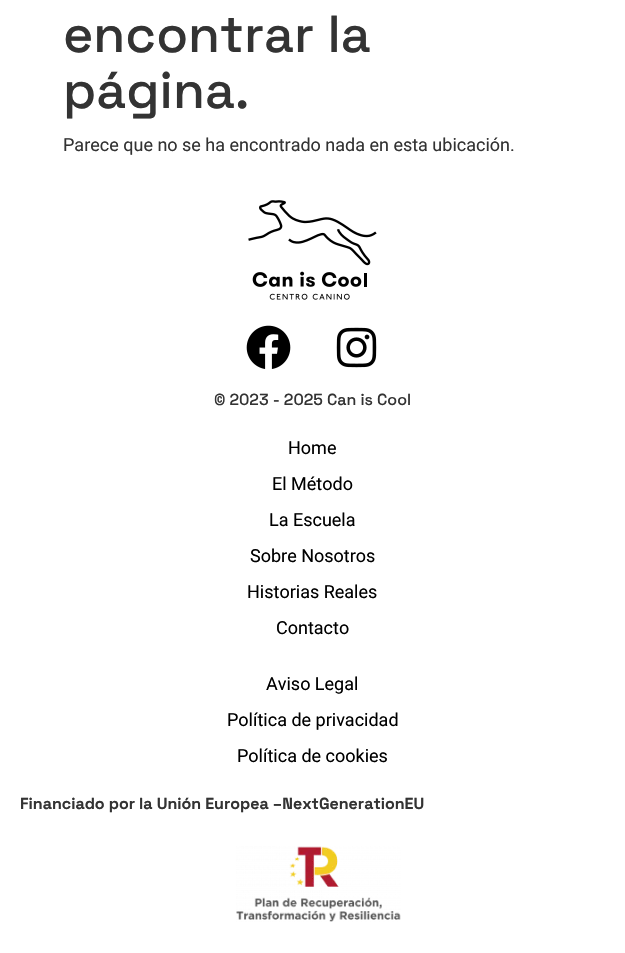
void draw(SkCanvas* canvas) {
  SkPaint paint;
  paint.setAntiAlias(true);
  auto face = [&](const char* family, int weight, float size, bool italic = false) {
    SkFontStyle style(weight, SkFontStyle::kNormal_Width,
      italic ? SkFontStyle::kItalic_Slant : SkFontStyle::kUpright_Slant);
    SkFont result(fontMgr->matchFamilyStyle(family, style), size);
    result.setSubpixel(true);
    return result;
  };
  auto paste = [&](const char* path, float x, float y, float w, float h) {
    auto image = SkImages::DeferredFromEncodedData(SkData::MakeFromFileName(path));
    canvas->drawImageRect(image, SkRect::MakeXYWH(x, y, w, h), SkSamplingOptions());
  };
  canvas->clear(0xffffffff);
  paste("img/1.png", 248, 200, 129, 100);
  paste("img/2.png", 246, 325, 45, 44);
  paste("img/3.png", 336, 327, 41, 41);
  paste("img/4.png", 236, 846, 165, 76);
  auto f0 = face("Space Grotesk", 500, 52);
  paint.setColor(0xff333333);
  canvas->drawString("encontrar la", 63, 52, f0, paint);
  canvas->drawString("página.", 63, 108, f0, paint);
  auto f1 = face("Roboto", 400, 18);
  canvas->drawString("Parece que no se ha encontrado nada en esta ubicación.", 63, 151, f1, paint);
  auto f2 = face("Space Grotesk", 500, 16);
  canvas->drawString("© 2023 - 2025 Can is Cool", 214, 405, f2, paint);
  paint.setColor(0xff000000);
  {
    const struct { const char* s; float x, y; } items[] = {
      {"Home", 288, 454},
      {"El Método", 272, 490},
      {"La Escuela", 269, 526},
      {"Sobre Nosotros", 250, 562},
      {"Historias Reales", 247, 598},
      {"Contacto", 276, 634},
      {"Aviso Legal", 266, 690},
      {"Política de privacidad", 227, 726},
      {"Política de cookies", 237, 762},
    };
    for (auto [s, x, y] : items) {
      canvas->drawString(s, x, y, f1, paint);
    }
  }
  auto f3 = face("Space Grotesk", 700, 16);
  paint.setColor(0xff333333);
  canvas->drawString("Financiado por la Unión Europea –NextGenerationEU", 20, 809, f3, paint);
}
